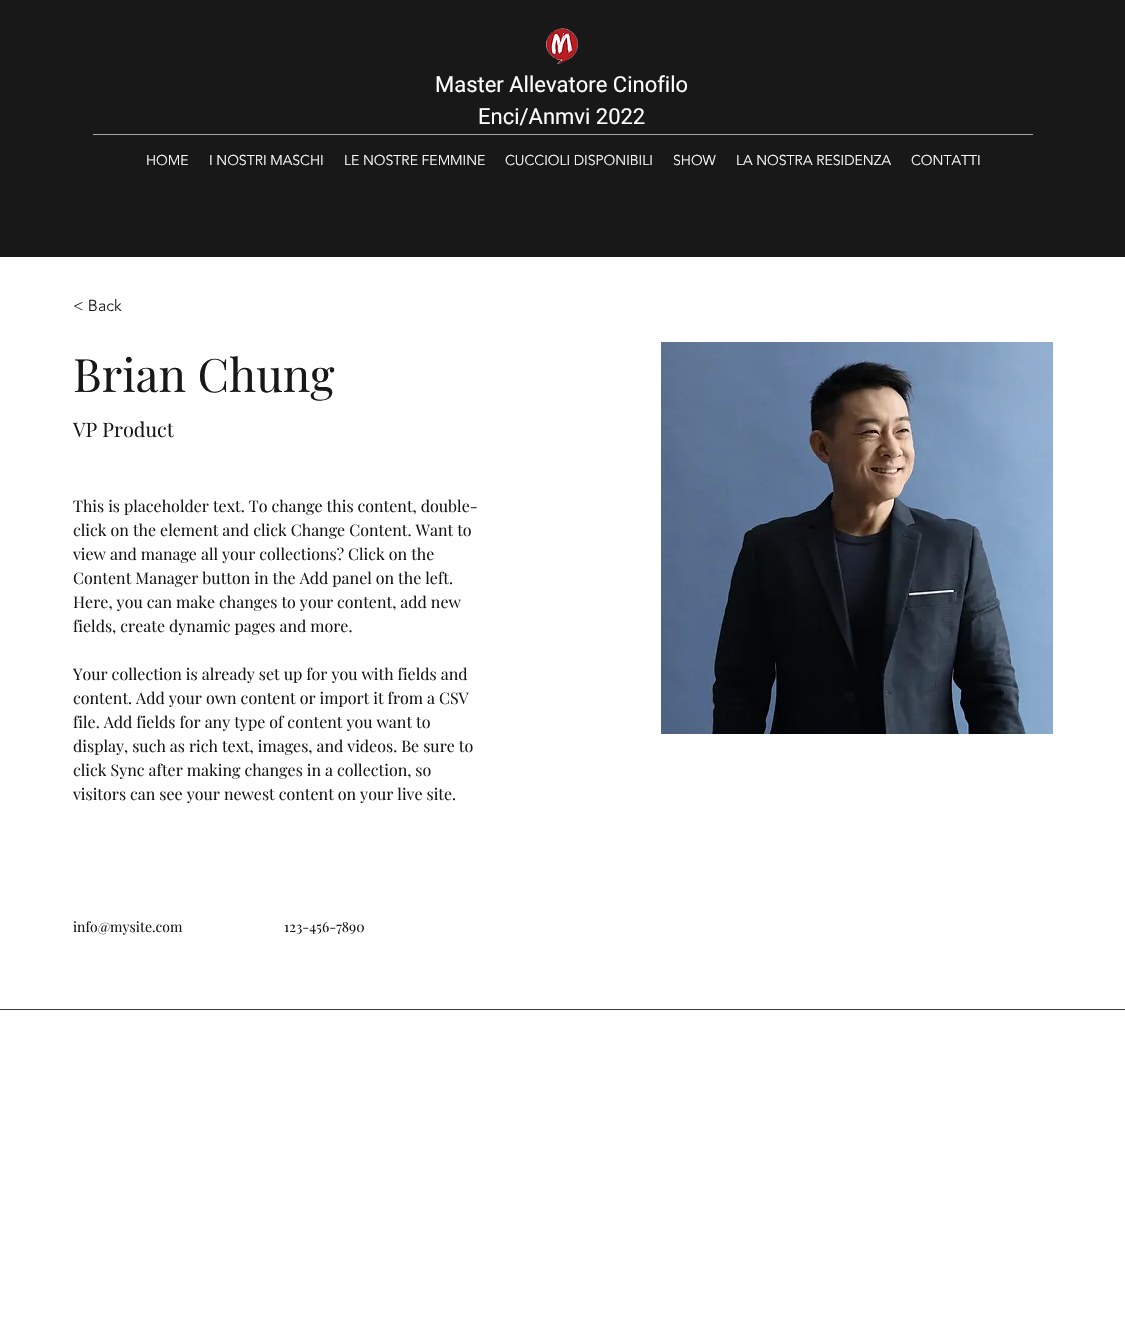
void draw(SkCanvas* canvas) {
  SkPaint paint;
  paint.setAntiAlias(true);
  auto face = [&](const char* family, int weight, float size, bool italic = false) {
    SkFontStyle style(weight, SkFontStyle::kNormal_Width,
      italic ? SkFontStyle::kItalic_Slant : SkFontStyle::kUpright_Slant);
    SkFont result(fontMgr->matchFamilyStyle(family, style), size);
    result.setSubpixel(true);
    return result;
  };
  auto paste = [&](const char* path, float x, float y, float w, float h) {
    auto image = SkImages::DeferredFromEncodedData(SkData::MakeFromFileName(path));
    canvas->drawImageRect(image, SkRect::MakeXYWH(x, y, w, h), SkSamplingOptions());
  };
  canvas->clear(0xffffffff);
  paint.setColor(0xff181818);
  canvas->drawRect(SkRect::MakeXYWH(0, 0, 1125, 257), paint);
  paste("img/1.png", 546, 28, 32, 37);
  paint.setColor(0xffa3a3a9);
  canvas->drawRect(SkRect::MakeXYWH(93, 134, 940, 1), paint);
  paste("img/2.png", 661, 342, 392, 392);
  paint.setColor(0xff3b3b3b);
  canvas->drawRect(SkRect::MakeXYWH(0, 1009, 1125, 1), paint);
  auto f0 = face("Roboto", 400, 22);
  paint.setColor(0xffffffff);
  canvas->drawString("Master Allevatore Cinofilo", 435, 92, f0, paint);
  canvas->drawString("Enci/Anmvi 2022", 478, 124, f0, paint);
  auto f1 = face("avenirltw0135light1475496", 300, 14);
  {
    const struct { const char* s; float x, y; } items[] = {
      {"HOME", 146, 165},
      {"I NOSTRI MASCHI", 209, 165},
      {"LE NOSTRE FEMMINE", 344, 165},
      {"CUCCIOLI DISPONIBILI", 505, 165},
      {"SHOW", 673, 165},
      {"LA NOSTRA RESIDENZA", 736, 165},
      {"CONTATTI", 911, 165},
    };
    for (auto [s, x, y] : items) {
      canvas->drawString(s, x, y, f1, paint);
    }
  }
  auto f2 = face("avenirltw0135light1475496", 300, 16);
  paint.setColor(0xff181818);
  canvas->drawString("< Back", 73, 311, f2, paint);
  auto f3 = face("Playfair Display", 400, 46);
  canvas->drawString("Brian Chung", 73, 392, f3, paint);
  auto f4 = face("Playfair Display", 400, 20);
  canvas->drawString("VP Product", 73, 437, f4, paint);
  auto f5 = face("Playfair Display", 400, 16);
  {
    const struct { const char* s; float x, y; } items[] = {
      {"This is placeholder text. To change this content, double-", 73, 512},
      {"click on the element and click Change Content. Want to", 73, 536},
      {"view and manage all your collections? Click on the", 73, 560},
      {"Content Manager button in the Add panel on the left.", 73, 584},
      {"Here, you can make changes to your content, add new", 73, 608},
      {"fields, create dynamic pages and more.", 73, 632},
      {"Your collection is already set up for you with fields and", 73, 680},
      {"content. Add your own content or import it from a CSV", 73, 704},
      {"file. Add fields for any type of content you want to", 73, 728},
      {"display, such as rich text, images, and videos. Be sure to", 73, 752},
      {"click Sync after making changes in a collection, so", 73, 776},
      {"visitors can see your newest content on your live site.", 73, 800},
    };
    for (auto [s, x, y] : items) {
      canvas->drawString(s, x, y, f5, paint);
    }
  }
  auto f6 = face("Playfair Display", 400, 14);
  canvas->drawString("info@mysite.com", 73, 932, f6, paint);
  canvas->drawString("123-456-7890", 284, 932, f6, paint);
}
